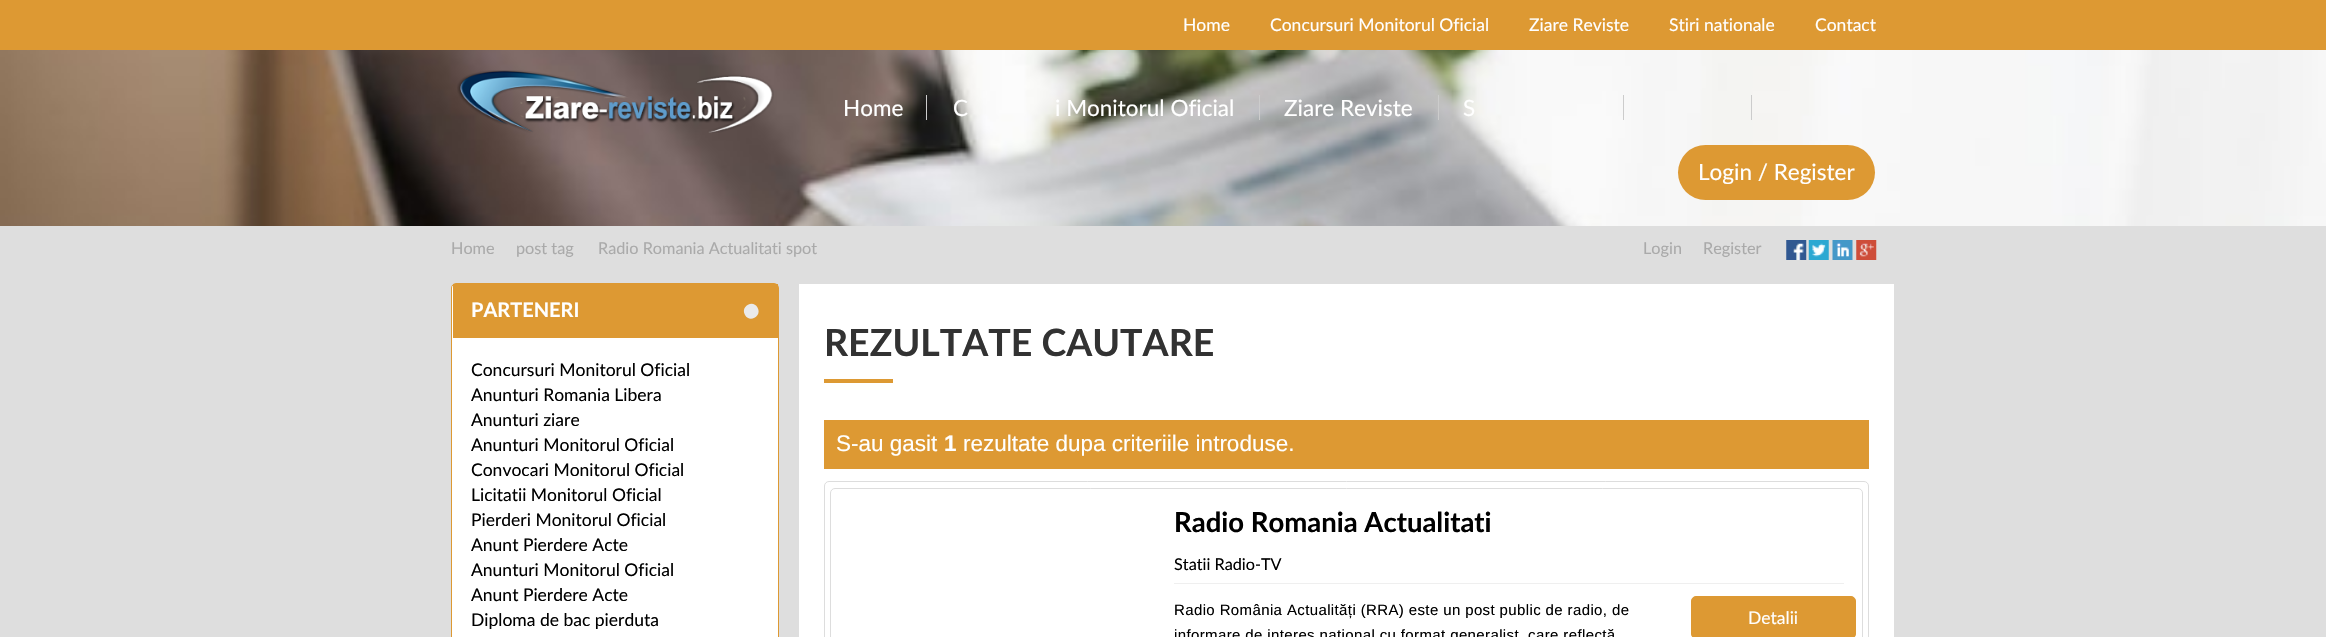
void draw(SkCanvas* canvas) {
  SkPaint paint;
  paint.setAntiAlias(true);
  auto face = [&](const char* family, int weight, float size, bool italic = false) {
    SkFontStyle style(weight, SkFontStyle::kNormal_Width,
      italic ? SkFontStyle::kItalic_Slant : SkFontStyle::kUpright_Slant);
    SkFont result(fontMgr->matchFamilyStyle(family, style), size);
    result.setSubpixel(true);
    return result;
  };
  auto writeSpaced = [&](const char* s, float x, float y, const SkFont& font, const SkPaint& ink, float letter, float word) {
    std::vector<SkGlyphID> glyphs(font.countText(s, strlen(s), SkTextEncoding::kUTF8));
    std::vector<float> xs(glyphs.size());
    font.textToGlyphs(s, strlen(s), SkTextEncoding::kUTF8, glyphs);
    font.getXPos(glyphs, xs, x);
    float extra = 0;
    for (size_t i = 0; i < glyphs.size(); i++) {
      xs[i] += extra;
      extra += letter + word * (glyphs[i] == font.unicharToGlyph(' '));
    }
    canvas->drawTextBlob(SkTextBlob::MakeFromPosHGlyphs(glyphs, xs, y, font), 0, 0, ink);
  };
  auto paste = [&](const char* path, float x, float y, float w, float h) {
    auto image = SkImages::DeferredFromEncodedData(SkData::MakeFromFileName(path));
    canvas->drawImageRect(image, SkRect::MakeXYWH(x, y, w, h), SkSamplingOptions());
  };
  auto shape = [&](const char* data, bool evenOdd = false) {
    SkPath result = *SkParsePath::FromSVGString(data);
    if (evenOdd) result.setFillType(SkPathFillType::kEvenOdd);
    return result;
  };
  canvas->clear(0xffdd9933);
  paste("img/1.png", 0, 50, 2326, 176);
  paste("img/2.png", 457, 70, 317, 63);
  {
    const struct { float x, y, w, h; SkColor color; } items[] = {
      {926, 95, 1, 25, 0xffcccccc},
      {1259, 95, 1, 25, 0xffcccccc},
      {1438, 95, 1, 25, 0xffcccccc},
      {1623, 95, 1, 25, 0xffcccccc},
      {1751, 95, 1, 25, 0xffcccccc},
    };
    for (auto [x, y, w, h, color] : items) {
      paint.setColor(color);
      canvas->drawRect(SkRect::MakeXYWH(x, y, w, h), paint);
    }
  }
  paint.setColor(0xffdd9933);
  canvas->drawRoundRect(SkRect::MakeXYWH(1678, 145, 197, 55), 27.5f, 27.5f, paint);
  paint.setColor(0xffdedede);
  canvas->drawRect(SkRect::MakeXYWH(0, 226, 2326, 411), paint);
  paste("img/3.png", 1786, 240, 21, 20);
  paste("img/4.png", 1808, 240, 21, 20);
  paste("img/5.png", 1832, 240, 21, 20);
  paste("img/6.png", 1856, 240, 21, 20);
  paint.setColor(0xffffffff);
  canvas->drawRoundRect(SkRect::MakeXYWH(451.5f, 283.5f, 327, 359), 4.5f, 4.5f, paint);
  paint.setStroke(true);
  paint.setStrokeWidth(1);
  paint.setColor(0xffdd9933);
  canvas->drawRoundRect(SkRect::MakeXYWH(451.5f, 283.5f, 327, 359), 4.5f, 4.5f, paint);
  paint.setStroke(false);
  canvas->drawRect(SkRect::MakeXYWH(453, 284, 325, 54), paint);
  paint.setColor(0xffeaeaea);
  canvas->drawPath(shape("M757.5 307.5C762.5 316 749.5 323.5 745 315C740 306.5 753 299 757.5 307.5Z"), paint);
  {
    const struct { float x, y, w, h; SkColor color; } items[] = {
      {799, 284, 1095, 353, 0xffffffff},
      {824, 379, 69, 4, 0xffdd9933},
      {824, 420, 1045, 49, 0xffdd9933},
    };
    for (auto [x, y, w, h, color] : items) {
      paint.setColor(color);
      canvas->drawRect(SkRect::MakeXYWH(x, y, w, h), paint);
    }
  }
  paint.setStroke(true);
  paint.setColor(0xffdddddd);
  canvas->drawRoundRect(SkRect::MakeXYWH(824.5f, 481.5f, 1044, 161), 4.5f, 4.5f, paint);
  canvas->drawRoundRect(SkRect::MakeXYWH(830.5f, 488.5f, 1032, 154), 4.5f, 4.5f, paint);
  paint.setStroke(false);
  paint.setColor(0xffefefef);
  canvas->drawRect(SkRect::MakeXYWH(1174, 583, 670, 1), paint);
  paint.setColor(0xffdd9933);
  canvas->drawRoundRect(SkRect::MakeXYWH(1691.5f, 596.5f, 164, 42), 4.5f, 4.5f, paint);
  paint.setStroke(true);
  canvas->drawRoundRect(SkRect::MakeXYWH(1691.5f, 596.5f, 164, 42), 4.5f, 4.5f, paint);
  auto f0 = face("Lato", 400, 17.5f);
  paint.setStroke(false);
  paint.setColor(0xffffffff);
  {
    const struct { const char* s; float x, y; } items[] = {
      {"Home", 1183, 31},
      {"Concursuri Monitorul Oficial", 1270, 31},
      {"Ziare Reviste", 1529, 31},
      {"Stiri nationale", 1669, 31},
      {"Contact", 1815, 31},
    };
    for (auto [s, x, y] : items) {
      canvas->drawString(s, x, y, f0, paint);
    }
  }
  auto f1 = face("Lato", 400, 22.5f);
  {
    const struct { const char* s; float x, y; } items[] = {
      {"Home", 843, 116},
      {"C", 953, 116},
      {"i Monitorul Oficial", 1055, 116},
      {"Ziare Reviste", 1284, 116},
      {"S", 1463, 116},
      {"Login / Register", 1698, 180},
    };
    for (auto [s, x, y] : items) {
      canvas->drawString(s, x, y, f1, paint);
    }
  }
  auto f2 = face("Lato", 400, 16.25f);
  paint.setColor(0xffaaaaaa);
  {
    const struct { const char* s; float x, y; } items[] = {
      {"Home", 451, 254},
      {"post tag", 516, 254},
      {"Radio Romania Actualitati spot", 598, 254},
      {"Login", 1643, 254},
      {"Register", 1703, 254},
    };
    for (auto [s, x, y] : items) {
      canvas->drawString(s, x, y, f2, paint);
    }
  }
  auto f3 = face("Lato", 700, 20);
  paint.setColor(0xffffffff);
  canvas->drawString("PARTENERI", 471, 317, f3, paint);
  paint.setColor(0xff000000);
  {
    const struct { const char* s; float x, y; } items[] = {
      {"Concursuri Monitorul Oficial", 471, 376},
      {"Anunturi Romania Libera", 471, 401},
      {"Anunturi ziare", 471, 426},
      {"Anunturi Monitorul Oficial", 471, 451},
      {"Convocari Monitorul Oficial", 471, 476},
      {"Licitatii Monitorul Oficial", 471, 501},
      {"Pierderi Monitorul Oficial", 471, 526},
      {"Anunt Pierdere Acte", 471, 551},
      {"Anunturi Monitorul Oficial", 471, 576},
      {"Anunt Pierdere Acte", 471, 601},
      {"Diploma de bac pierduta", 471, 626},
    };
    for (auto [s, x, y] : items) {
      canvas->drawString(s, x, y, f0, paint);
    }
  }
  auto f4 = face("Lato", 700, 37.5f);
  paint.setColor(0xff323232);
  canvas->drawString("REZULTATE CAUTARE", 824, 356, f4, paint);
  auto f5 = face("Liberation Sans", 400, 22.5f);
  paint.setColor(0xffffffff);
  canvas->drawString("S-au gasit", 836, 451, f5, paint);
  auto f6 = face("Liberation Sans", 700, 22.5f);
  canvas->drawString("1", 944, 451, f6, paint);
  canvas->drawString("rezultate dupa criteriile introduse.", 963, 451, f5, paint);
  auto f7 = face("Lato", 700, 27.5f);
  paint.setColor(0xff000000);
  canvas->drawString("Radio Romania Actualitati", 1174, 532, f7, paint);
  canvas->drawString("Statii Radio-TV", 1174, 570, f2, paint);
  auto f8 = face("Liberation Sans", 400, 15);
  writeSpaced("Radio România Actualități (RRA) este un post public de radio, de", 1174, 615, f8, paint, 0.38f, 0);
  writeSpaced("informare de interes național cu format generalist, care reflectă", 1174, 640, f8, paint, 0.38f, 0);
  paint.setColor(0xffffffff);
  canvas->drawString("Detalii", 1748, 624, f0, paint);
}
